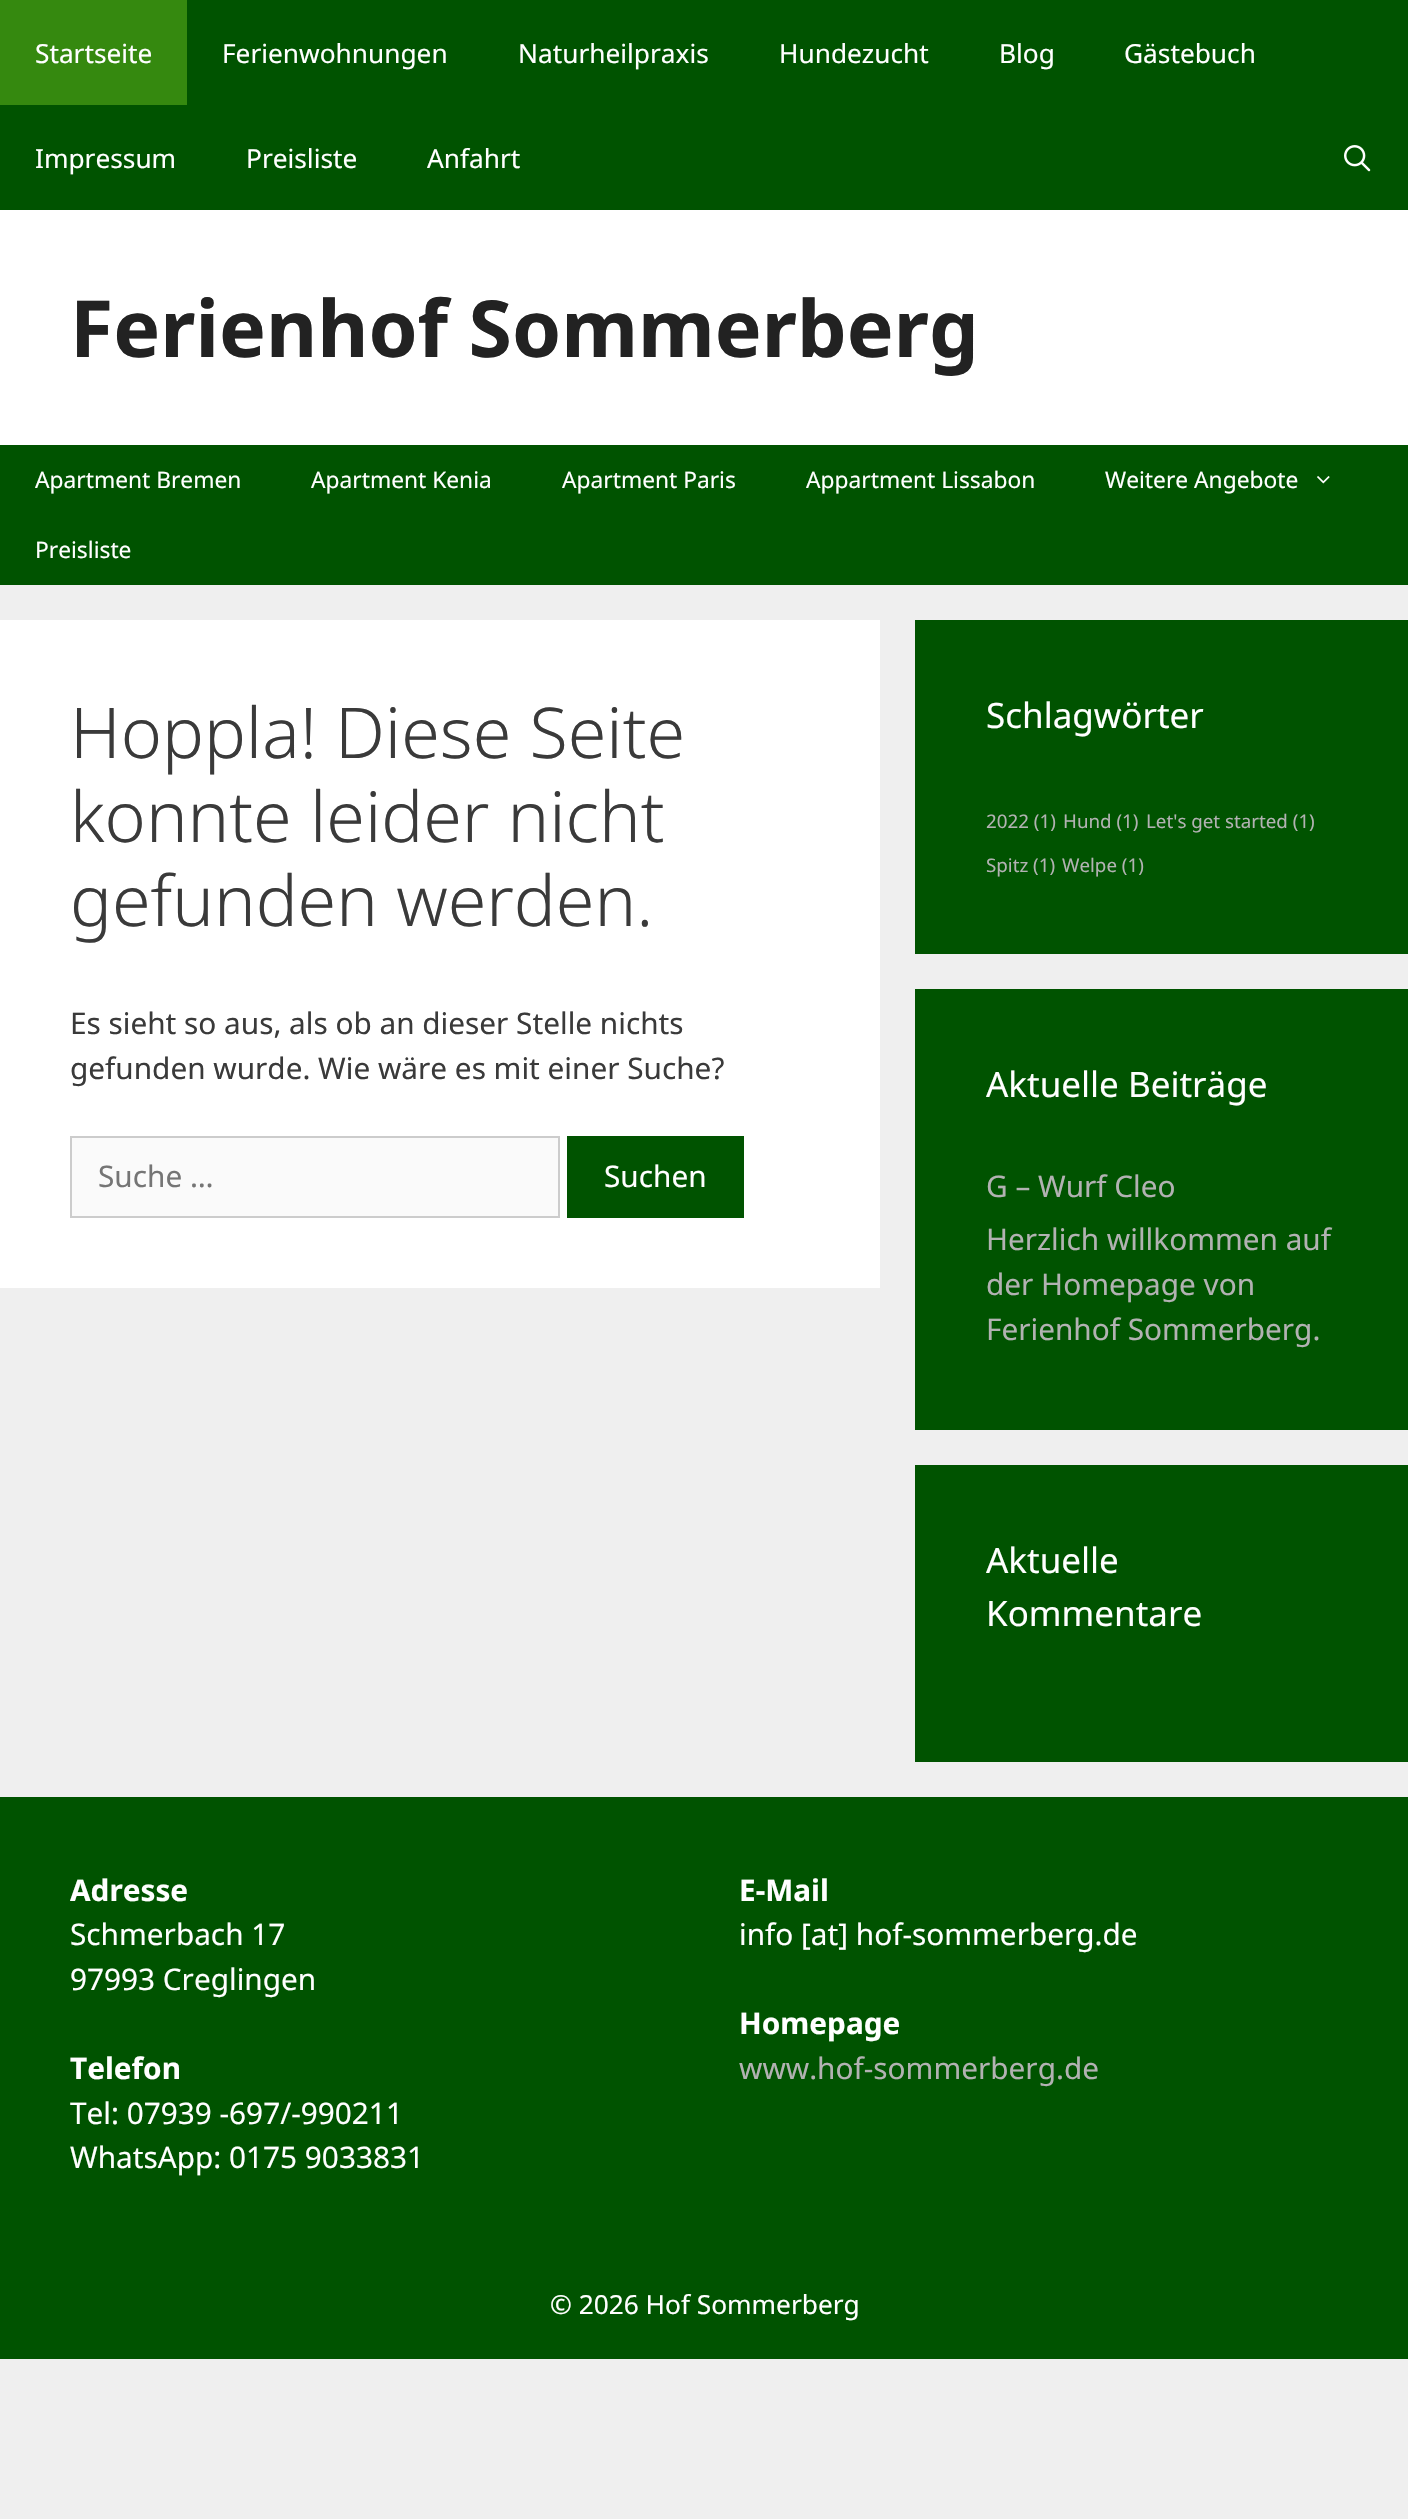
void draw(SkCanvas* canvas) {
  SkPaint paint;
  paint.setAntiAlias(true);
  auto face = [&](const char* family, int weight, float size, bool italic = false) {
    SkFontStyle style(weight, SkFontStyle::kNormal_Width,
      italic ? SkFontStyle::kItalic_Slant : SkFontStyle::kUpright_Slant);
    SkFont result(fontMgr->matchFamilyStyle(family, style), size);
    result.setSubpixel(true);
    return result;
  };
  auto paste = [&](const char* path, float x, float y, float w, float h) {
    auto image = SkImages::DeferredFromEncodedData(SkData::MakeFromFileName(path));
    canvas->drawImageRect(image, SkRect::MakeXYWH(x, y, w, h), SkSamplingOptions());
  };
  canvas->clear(0xffefefef);
  paint.setColor(0xff005300);
  canvas->drawRect(SkRect::MakeXYWH(0, 0, 1408, 210), paint);
  paint.setColor(0xff35890f);
  canvas->drawRect(SkRect::MakeXYWH(0, 0, 187, 105), paint);
  paste("img/1.png", 1344, 145, 27, 27);
  paint.setColor(0xffffffff);
  canvas->drawRect(SkRect::MakeXYWH(0, 210, 1408, 235), paint);
  paint.setColor(0xff005300);
  canvas->drawRect(SkRect::MakeXYWH(0, 445, 1408, 140), paint);
  paste("img/2.png", 1317, 476, 13, 8);
  paint.setColor(0xffffffff);
  canvas->drawRect(SkRect::MakeXYWH(0, 620, 880, 668), paint);
  paint.setColor(0xfffafafa);
  canvas->drawRect(SkRect::MakeXYWH(71, 1137, 488, 80), paint);
  paint.setStroke(true);
  paint.setStrokeWidth(2);
  paint.setColor(0xffcccccc);
  canvas->drawRect(SkRect::MakeXYWH(71, 1137, 488, 80), paint);
  paint.setStroke(false);
  {
    const struct { float x, y, w, h; SkColor color; } items[] = {
      {567, 1136, 177, 82, 0xff005300},
      {915, 620, 493, 334, 0xff005300},
      {915, 989, 493, 441, 0xff005300},
      {915, 1465, 493, 297, 0xff005300},
      {0, 1797, 1408, 562, 0xff005300},
    };
    for (auto [x, y, w, h, color] : items) {
      paint.setColor(color);
      canvas->drawRect(SkRect::MakeXYWH(x, y, w, h), paint);
    }
  }
  auto f0 = face("Noto Sans", 400, 26.25f);
  paint.setColor(0xffffffff);
  {
    const struct { const char* s; float x, y; } items[] = {
      {"Startseite", 35, 63},
      {"Ferienwohnungen", 222, 63},
      {"Naturheilpraxis", 518, 63},
      {"Hundezucht", 779, 63},
      {"Blog", 999, 63},
      {"Gästebuch", 1124, 63},
      {"Impressum", 35, 168},
      {"Preisliste", 246, 168},
      {"Anfahrt", 427, 168},
    };
    for (auto [s, x, y] : items) {
      canvas->drawString(s, x, y, f0, paint);
    }
  }
  auto f1 = face("Noto Sans", 700, 78.75f);
  paint.setColor(0xff222222);
  canvas->drawString("Ferienhof Sommerberg", 70, 357, f1, paint);
  auto f2 = face("Noto Sans", 400, 22.75f);
  paint.setColor(0xffffffff);
  {
    const struct { const char* s; float x, y; } items[] = {
      {"Apartment Bremen", 35, 488},
      {"Apartment Kenia", 311, 488},
      {"Apartment Paris", 562, 488},
      {"Appartment Lissabon", 806, 488},
      {"Weitere Angebote", 1105, 488},
      {"Preisliste", 35, 558},
    };
    for (auto [s, x, y] : items) {
      canvas->drawString(s, x, y, f2, paint);
    }
  }
  auto f3 = face("Noto Sans", 300, 70);
  paint.setColor(0xff3a3a3a);
  {
    const struct { const char* s; float x, y; } items[] = {
      {"Hoppla! Diese Seite", 70, 758},
      {"konnte leider nicht", 70, 842},
      {"gefunden werden.", 70, 926},
    };
    for (auto [s, x, y] : items) {
      canvas->drawString(s, x, y, f3, paint);
    }
  }
  auto f4 = face("Noto Sans", 400, 29.75f);
  canvas->drawString("Es sieht so aus, als ob an dieser Stelle nichts", 70, 1034, f4, paint);
  canvas->drawString("gefunden wurde. Wie wäre es mit einer Suche?", 70, 1079, f4, paint);
  paint.setColor(0xff757575);
  canvas->drawString("Suche …", 98, 1187, f4, paint);
  paint.setColor(0xffffffff);
  canvas->drawString("Suchen", 604, 1187, f4, paint);
  auto f5 = face("Noto Sans", 400, 35);
  canvas->drawString("Schlagwörter", 986, 728, f5, paint);
  auto f6 = face("Noto Sans", 400, 18.75f);
  paint.setColor(0xffb2b2b2);
  {
    const struct { const char* s; float x, y; } items[] = {
      {"2022 (1)", 986, 828},
      {"Hund (1)", 1063, 828},
      {"Let's get started (1)", 1146, 828},
      {"Spitz (1)", 986, 872},
      {"Welpe (1)", 1062, 872},
    };
    for (auto [s, x, y] : items) {
      canvas->drawString(s, x, y, f6, paint);
    }
  }
  paint.setColor(0xffffffff);
  canvas->drawString("Aktuelle Beiträge", 986, 1097, f5, paint);
  paint.setColor(0xffb2b2b2);
  {
    const struct { const char* s; float x, y; } items[] = {
      {"G – Wurf Cleo", 986, 1197},
      {"Herzlich willkommen auf", 986, 1250},
      {"der Homepage von", 986, 1295},
      {"Ferienhof Sommerberg.", 986, 1340},
    };
    for (auto [s, x, y] : items) {
      canvas->drawString(s, x, y, f4, paint);
    }
  }
  paint.setColor(0xffffffff);
  canvas->drawString("Aktuelle", 986, 1573, f5, paint);
  canvas->drawString("Kommentare", 986, 1626, f5, paint);
  auto f7 = face("Noto Sans", 700, 29.75f);
  canvas->drawString("Adresse", 70, 1901, f7, paint);
  canvas->drawString("Schmerbach 17", 70, 1945, f4, paint);
  canvas->drawString("97993 Creglingen", 70, 1990, f4, paint);
  canvas->drawString("Telefon", 70, 2079, f7, paint);
  canvas->drawString("Tel: 07939 -697/-990211", 70, 2124, f4, paint);
  canvas->drawString("WhatsApp: 0175 9033831", 70, 2168, f4, paint);
  canvas->drawString("E-Mail", 739, 1901, f7, paint);
  canvas->drawString("info [at] hof-sommerberg.de", 739, 1945, f4, paint);
  canvas->drawString("Homepage", 739, 2034, f7, paint);
  paint.setColor(0xffb2b2b2);
  canvas->drawString("www.hof-sommerberg.de", 739, 2079, f4, paint);
  paint.setColor(0xffffffff);
  canvas->drawString("© 2026 Hof Sommerberg", 550, 2314, f0, paint);
}
